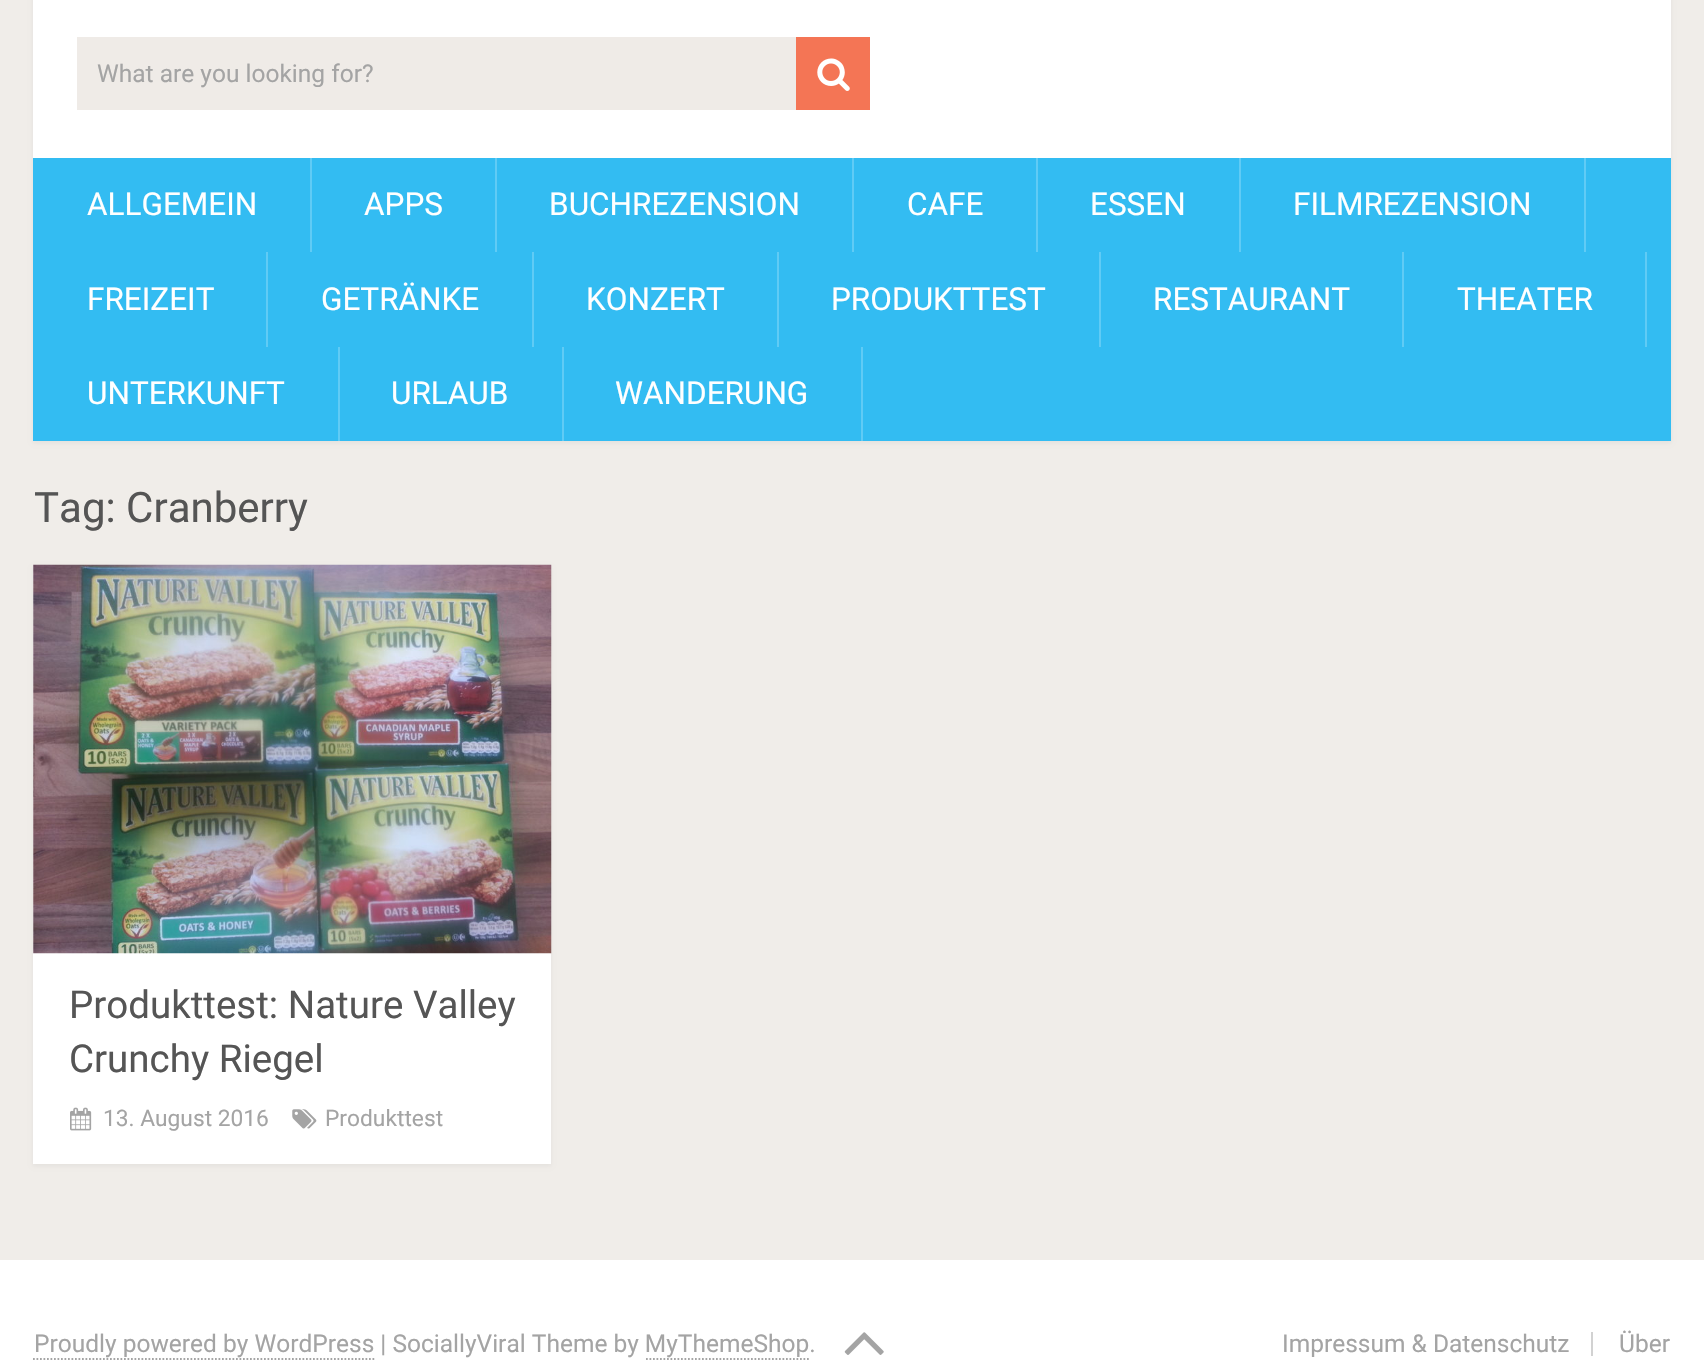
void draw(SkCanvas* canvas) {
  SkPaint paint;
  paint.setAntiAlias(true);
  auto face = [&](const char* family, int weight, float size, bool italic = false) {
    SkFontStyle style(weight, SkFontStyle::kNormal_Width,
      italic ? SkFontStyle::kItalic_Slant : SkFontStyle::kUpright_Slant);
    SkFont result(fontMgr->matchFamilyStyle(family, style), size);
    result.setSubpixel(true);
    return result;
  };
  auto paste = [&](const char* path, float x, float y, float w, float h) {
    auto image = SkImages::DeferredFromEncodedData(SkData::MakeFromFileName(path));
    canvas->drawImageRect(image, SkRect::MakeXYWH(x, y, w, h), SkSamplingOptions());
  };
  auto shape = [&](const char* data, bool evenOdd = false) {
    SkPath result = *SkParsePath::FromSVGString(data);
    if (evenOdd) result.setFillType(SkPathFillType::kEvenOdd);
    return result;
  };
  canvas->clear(0xfff0ede9);
  paint.setColor(0x0d000000);
  paint.setMaskFilter(SkMaskFilter::MakeBlur(kNormal_SkBlurStyle, 2));
  canvas->drawRect(SkRect::MakeXYWH(33, -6, 1638, 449), paint);
  paint.setMaskFilter(nullptr);
  {
    const struct { float x, y, w, h; SkColor color; } items[] = {
      {33, 0, 1638, 158, 0xffffffff},
      {77, 37, 719, 73, 0xffefebe7},
      {796, 37, 74, 73, 0xfff47555},
    };
    for (auto [x, y, w, h, color] : items) {
      paint.setColor(color);
      canvas->drawRect(SkRect::MakeXYWH(x, y, w, h), paint);
    }
  }
  paste("img/1.png", 817, 58, 33, 33);
  {
    const struct { float x, y, w, h; SkColor color; } items[] = {
      {33, 158, 1638, 283, 0xff33bcf2},
      {310, 158, 2, 94, 0xff60cbf5},
      {495, 158, 2, 94, 0xff60cbf5},
      {852, 158, 2, 94, 0xff60cbf5},
      {1036, 158, 2, 94, 0xff60cbf5},
      {1239, 158, 2, 94, 0xff60cbf5},
      {1584, 158, 2, 94, 0xff60cbf5},
      {266, 252, 2, 95, 0xff60cbf5},
      {532, 252, 2, 95, 0xff60cbf5},
      {777, 252, 2, 95, 0xff60cbf5},
      {1099, 252, 2, 95, 0xff60cbf5},
      {1402, 252, 2, 95, 0xff60cbf5},
      {1645, 252, 2, 95, 0xff60cbf5},
      {338, 347, 2, 94, 0xff60cbf5},
      {562, 347, 2, 94, 0xff60cbf5},
      {861, 347, 2, 94, 0xff60cbf5},
    };
    for (auto [x, y, w, h, color] : items) {
      paint.setColor(color);
      canvas->drawRect(SkRect::MakeXYWH(x, y, w, h), paint);
    }
  }
  paint.setColor(0x0d000000);
  paint.setMaskFilter(SkMaskFilter::MakeBlur(kNormal_SkBlurStyle, 2));
  canvas->drawRect(SkRect::MakeXYWH(33, 567, 518, 599), paint);
  paint.setMaskFilter(nullptr);
  paint.setColor(0xffffffff);
  canvas->drawRect(SkRect::MakeXYWH(33, 565, 518, 599), paint);
  paste("img/2.png", 33, 564, 519, 390);
  paste("img/3.png", 70, 1107, 22, 24);
  paste("img/4.png", 292, 1109, 25, 20);
  canvas->drawRect(SkRect::MakeXYWH(0, 1260, 1704, 106), paint);
  paint.setStroke(true);
  paint.setStrokeWidth(1.8f);
  paint.setColor(0xffa4a4a4);
  paint.setPathEffect(SkDashPathEffect::Make({{1.75f, 1.75f}}, 0));
  canvas->drawPath(shape("M33 1359H374.5"), paint);
  paint.setPathEffect(nullptr);
  paint.setPathEffect(SkDashPathEffect::Make({{1.75f, 1.75f}}, 0));
  canvas->drawPath(shape("M646 1359H810"), paint);
  paint.setPathEffect(nullptr);
  paste("img/5.png", 844, 1332, 40, 23);
  paint.setStroke(false);
  paint.setColor(0xffd2d2d2);
  canvas->drawRect(SkRect::MakeXYWH(1591, 1332, 2, 24), paint);
  auto f0 = face("Roboto", 400, 24.5f);
  paint.setColor(0xffa4a4a4);
  canvas->drawString("What are you looking for?", 97, 82, f0, paint);
  auto f1 = face("Roboto", 400, 31.5f);
  paint.setColor(0xffffffff);
  {
    const struct { const char* s; float x, y; } items[] = {
      {"ALLGEMEIN", 87, 215},
      {"APPS", 364, 215},
      {"BUCHREZENSION", 549, 215},
      {"CAFE", 907, 215},
      {"ESSEN", 1090, 215},
      {"FILMREZENSION", 1293, 215},
      {"FREIZEIT", 87, 310},
      {"GETRÄNKE", 321, 310},
      {"KONZERT", 586, 310},
      {"PRODUKTTEST", 831, 310},
      {"RESTAURANT", 1153, 310},
      {"THEATER", 1457, 310},
      {"UNTERKUNFT", 87, 404},
      {"URLAUB", 391, 404},
      {"WANDERUNG", 615, 404},
    };
    for (auto [s, x, y] : items) {
      canvas->drawString(s, x, y, f1, paint);
    }
  }
  auto f2 = face("Roboto", 400, 42);
  paint.setColor(0xff555555);
  canvas->drawString("Tag: Cranberry", 34, 522, f2, paint);
  auto f3 = face("Roboto", 400, 38.5f);
  canvas->drawString("Produkttest: Nature Valley", 69, 1018, f3, paint);
  canvas->drawString("Crunchy Riegel", 69, 1072, f3, paint);
  auto f4 = face("Roboto", 400, 22.75f);
  paint.setColor(0xffa4a4a4);
  canvas->drawString("13. August 2016", 103, 1126, f4, paint);
  canvas->drawString("Produkttest", 325, 1126, f4, paint);
  {
    const struct { const char* s; float x, y; } items[] = {
      {"Proudly powered by WordPress | SociallyViral Theme by MyThemeShop.", 34, 1352},
      {"Impressum & Datenschutz", 1282, 1352},
      {"Über", 1619, 1352},
    };
    for (auto [s, x, y] : items) {
      canvas->drawString(s, x, y, f0, paint);
    }
  }
}
